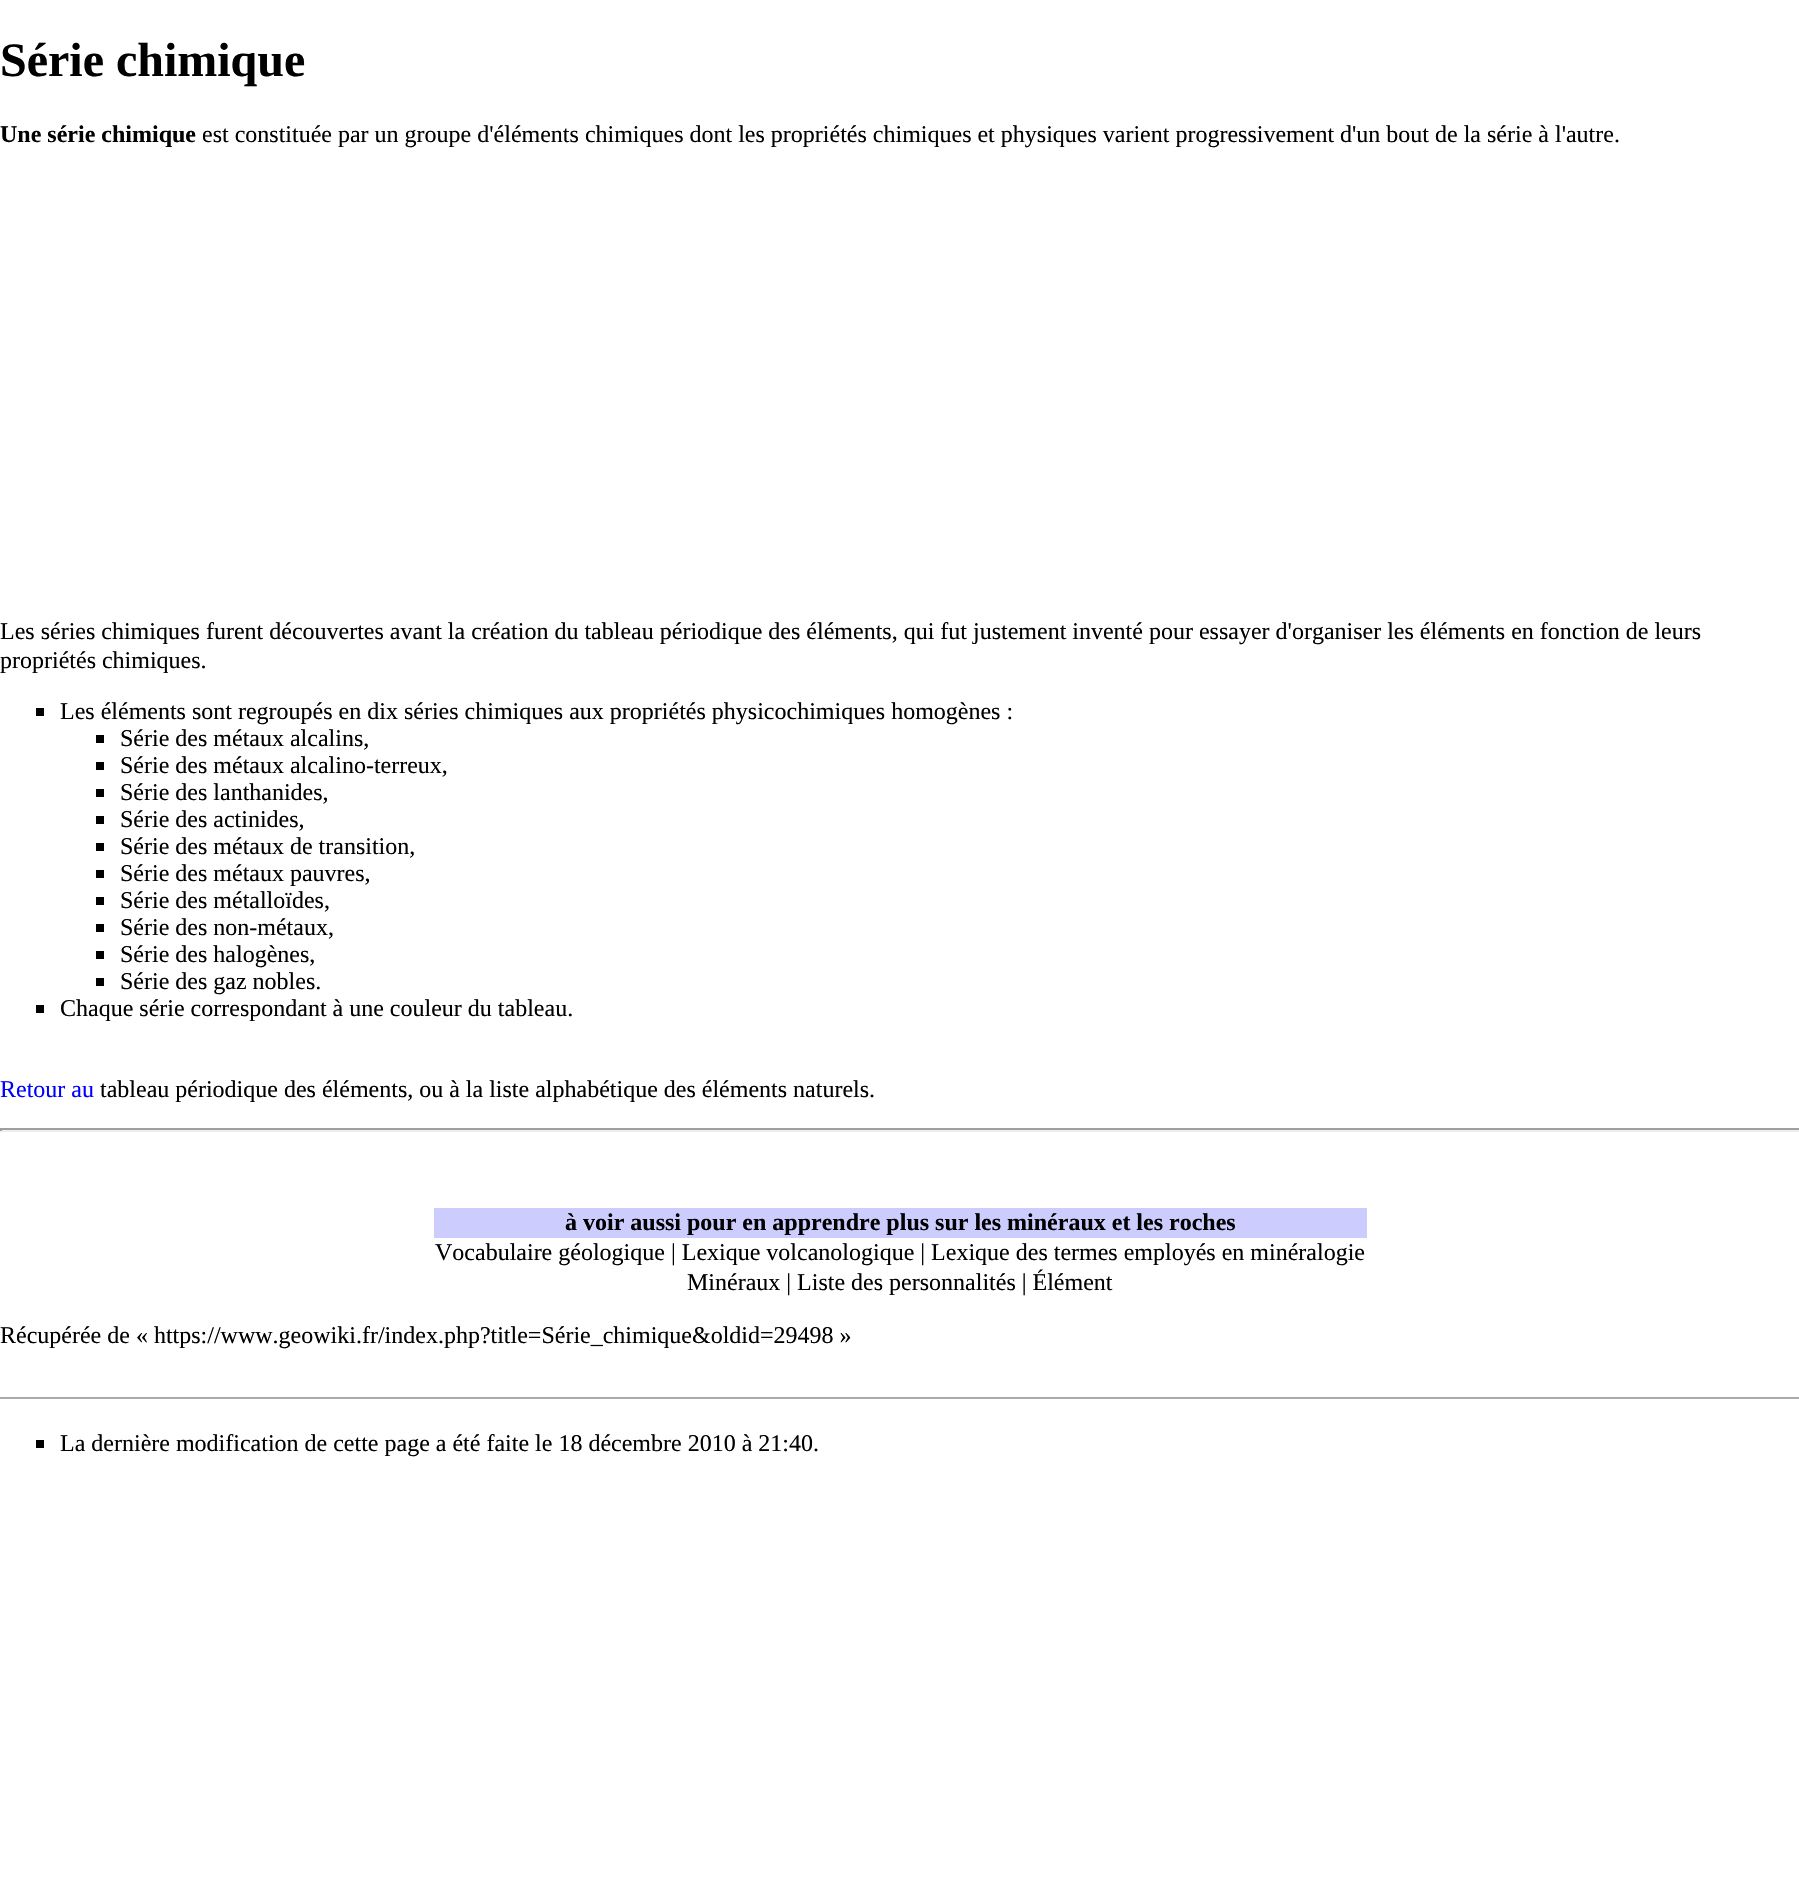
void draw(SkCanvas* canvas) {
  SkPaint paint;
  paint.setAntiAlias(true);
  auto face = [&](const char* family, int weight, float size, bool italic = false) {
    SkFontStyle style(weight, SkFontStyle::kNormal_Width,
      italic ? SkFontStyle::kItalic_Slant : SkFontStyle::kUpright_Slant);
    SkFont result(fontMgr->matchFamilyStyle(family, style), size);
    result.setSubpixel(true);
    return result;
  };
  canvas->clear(0xffffffff);
  {
    const struct { float x, y, w, h; SkColor color; } items[] = {
      {36, 708, 8, 8, 0xff000000},
      {96, 735, 8, 8, 0xff000000},
      {96, 762, 8, 8, 0xff000000},
      {96, 789, 8, 8, 0xff000000},
      {96, 816, 8, 8, 0xff000000},
      {96, 843, 8, 8, 0xff000000},
      {96, 870, 8, 8, 0xff000000},
      {96, 897, 8, 8, 0xff000000},
      {96, 924, 8, 8, 0xff000000},
      {96, 951, 8, 8, 0xff000000},
      {96, 978, 8, 8, 0xff000000},
      {36, 1005, 8, 8, 0xff000000},
      {0, 1128, 1799, 2, 0xff9f9f9f},
      {0, 1130, 1799, 2, 0xffeeeeee},
      {0, 1128, 2, 3, 0xff9f9f9f},
      {434, 1208, 933, 30, 0xffccccff},
      {0, 1397, 1799, 2, 0xffaaaaaa},
      {36, 1440, 8, 8, 0xff000000},
    };
    for (auto [x, y, w, h, color] : items) {
      paint.setColor(color);
      canvas->drawRect(SkRect::MakeXYWH(x, y, w, h), paint);
    }
  }
  auto f0 = face("Liberation Serif", 700, 48);
  canvas->drawString("Série chimique", 0, 76, f0, paint);
  auto f1 = face("Liberation Serif", 700, 24);
  canvas->drawString("Une série chimique", 0, 142, f1, paint);
  auto f2 = face("Liberation Serif", 400, 24);
  {
    const struct { const char* s; float x, y; } items[] = {
      {"est constituée par un groupe d'éléments chimiques dont les propriétés chimiques et physiques varient progressivement d'un bout de la série à l'autre.", 202, 142},
      {"Les séries chimiques furent découvertes avant la création du tableau périodique des éléments, qui fut justement inventé pour essayer d'organiser les éléments en fonction de leurs", 0, 639},
      {"propriétés chimiques.", 0, 668},
      {"Les éléments sont regroupés en dix séries chimiques aux propriétés physicochimiques homogènes :", 60, 719},
      {"Série des métaux alcalins,", 120, 746},
      {"Série des métaux alcalino-terreux,", 120, 773},
      {"Série des lanthanides,", 120, 800},
      {"Série des actinides,", 120, 827},
      {"Série des métaux de transition,", 120, 854},
      {"Série des métaux pauvres,", 120, 881},
      {"Série des métalloïdes,", 120, 908},
      {"Série des non-métaux,", 120, 935},
      {"Série des halogènes,", 120, 962},
      {"Série des gaz nobles.", 120, 989},
      {"Chaque série correspondant à une couleur du tableau.", 60, 1016},
    };
    for (auto [s, x, y] : items) {
      canvas->drawString(s, x, y, f2, paint);
    }
  }
  paint.setColor(0xff0000ff);
  canvas->drawString("Retour au", 0, 1097, f2, paint);
  paint.setColor(0xff000000);
  canvas->drawString("tableau périodique des éléments, ou à la liste alphabétique des éléments naturels.", 100, 1097, f2, paint);
  canvas->drawString("à voir aussi pour en apprendre plus sur les minéraux et les roches", 565, 1230, f1, paint);
  {
    const struct { const char* s; float x, y; } items[] = {
      {"Vocabulaire géologique | Lexique volcanologique | Lexique des termes employés en minéralogie", 435, 1260},
      {"Minéraux | Liste des personnalités | Élément", 687, 1290},
      {"Récupérée de « https://www.geowiki.fr/index.php?title=Série_chimique&oldid=29498 »", 0, 1343},
      {"La dernière modification de cette page a été faite le 18 décembre 2010 à 21:40.", 60, 1451},
    };
    for (auto [s, x, y] : items) {
      canvas->drawString(s, x, y, f2, paint);
    }
  }
}
